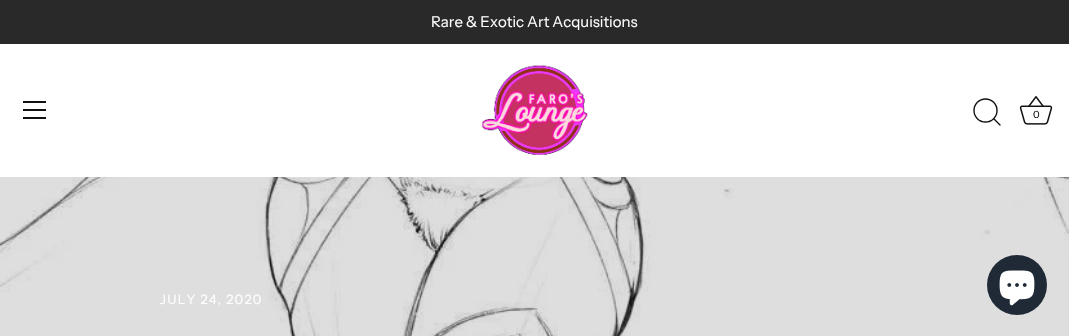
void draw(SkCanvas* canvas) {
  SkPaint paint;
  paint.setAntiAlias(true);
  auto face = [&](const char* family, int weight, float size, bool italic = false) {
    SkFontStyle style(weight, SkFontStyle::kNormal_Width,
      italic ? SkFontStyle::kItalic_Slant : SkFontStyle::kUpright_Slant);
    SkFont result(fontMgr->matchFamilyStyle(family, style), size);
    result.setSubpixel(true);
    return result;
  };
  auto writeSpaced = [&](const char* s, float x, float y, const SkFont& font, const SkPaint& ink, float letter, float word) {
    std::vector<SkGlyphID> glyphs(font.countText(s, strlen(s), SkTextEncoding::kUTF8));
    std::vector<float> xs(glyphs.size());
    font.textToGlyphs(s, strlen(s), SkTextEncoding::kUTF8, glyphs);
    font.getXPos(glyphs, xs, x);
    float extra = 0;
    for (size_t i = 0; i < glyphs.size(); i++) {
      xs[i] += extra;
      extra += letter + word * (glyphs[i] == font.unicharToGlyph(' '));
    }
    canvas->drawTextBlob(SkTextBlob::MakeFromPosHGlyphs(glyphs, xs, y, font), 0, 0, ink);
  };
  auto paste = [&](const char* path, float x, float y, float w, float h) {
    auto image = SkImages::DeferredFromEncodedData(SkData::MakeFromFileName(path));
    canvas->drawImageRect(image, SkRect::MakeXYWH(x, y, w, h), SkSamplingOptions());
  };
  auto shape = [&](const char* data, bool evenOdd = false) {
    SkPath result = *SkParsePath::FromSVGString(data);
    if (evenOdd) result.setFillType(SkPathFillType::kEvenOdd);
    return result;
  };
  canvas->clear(0xffffffff);
  {
    const struct { float x, y, w, h; SkColor color; } items[] = {
      {0, 0, 1069, 44, 0xff292929},
      {23, 101, 23, 2, 0xff111111},
      {23, 109, 23, 2, 0xff111111},
      {23, 117, 23, 2, 0xff111111},
    };
    for (auto [x, y, w, h, color] : items) {
      paint.setColor(color);
      canvas->drawRect(SkRect::MakeXYWH(x, y, w, h), paint);
    }
  }
  paste("img/1.png", 481, 65, 107, 91);
  paint.setStroke(true);
  paint.setStrokeWidth(1.4f);
  canvas->drawCircle(985.5f, 110.5f, 11.5f, paint);
  paint.setStrokeCap(SkPaint::kRound_Cap);
  paint.setStrokeJoin(SkPaint::kRound_Join);
  canvas->drawPath(shape("M1000 125L994 119"), paint);
  paste("img/2.png", 1019, 96, 34, 29);
  paste("img/3.png", 0, 177, 1069, 159);
  paint.setStroke(false);
  paint.setColor(0xff202a36);
  canvas->drawCircle(1017, 285, 30, paint);
  paste("img/4.png", 999, 270, 36, 36);
  auto f0 = face("Instrument Sans", 400, 15);
  paint.setColor(0xffffffff);
  canvas->drawString("Rare & Exotic Art Acquisitions", 431, 27, f0, paint);
  auto f1 = face("Instrument Sans", 400, 10);
  paint.setColor(0xff111111);
  canvas->drawString("0", 1033, 118, f1, paint);
  auto f2 = face("Instrument Sans", 400, 13);
  paint.setColor(0xffffffff);
  writeSpaced("JULY 24, 2020", 160, 304, f2, paint, 1.25f, 0);
}
